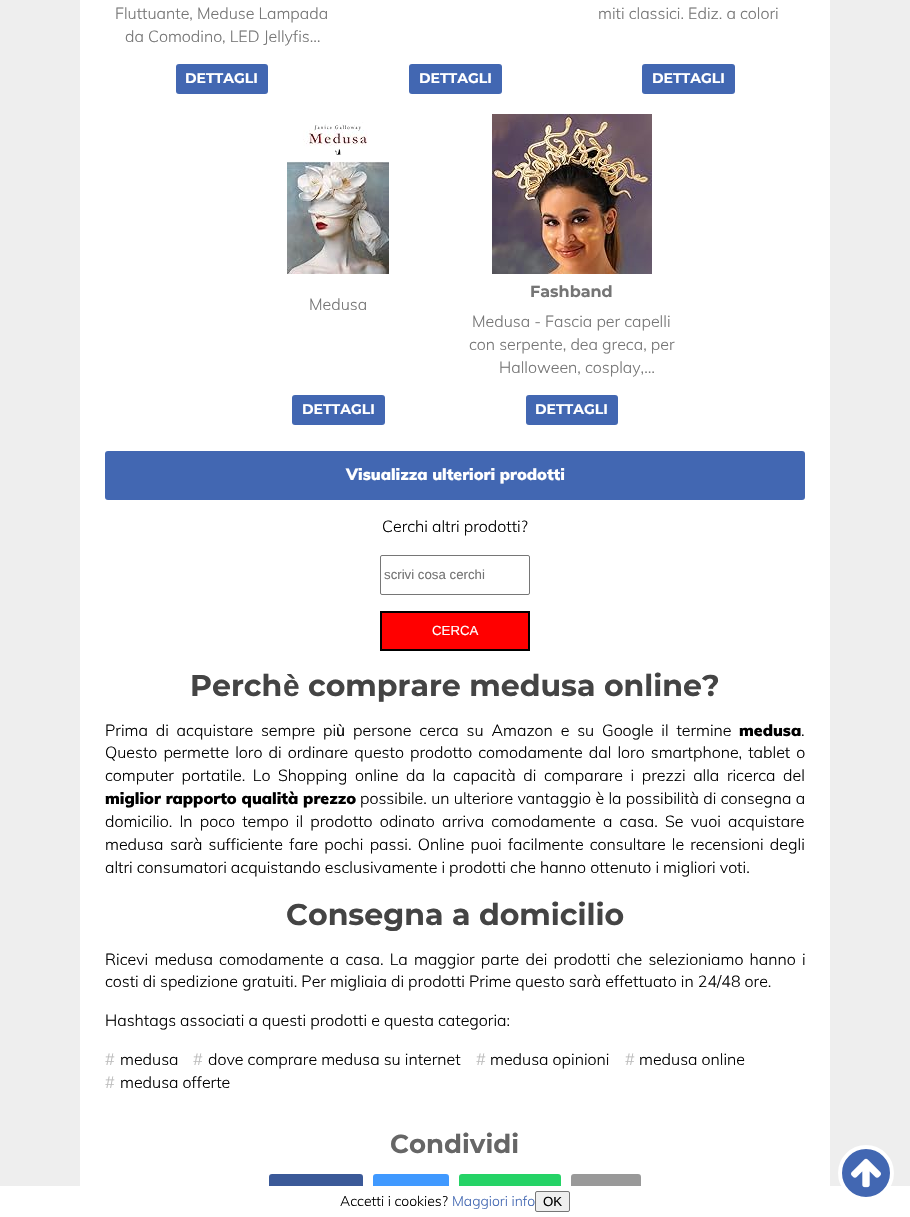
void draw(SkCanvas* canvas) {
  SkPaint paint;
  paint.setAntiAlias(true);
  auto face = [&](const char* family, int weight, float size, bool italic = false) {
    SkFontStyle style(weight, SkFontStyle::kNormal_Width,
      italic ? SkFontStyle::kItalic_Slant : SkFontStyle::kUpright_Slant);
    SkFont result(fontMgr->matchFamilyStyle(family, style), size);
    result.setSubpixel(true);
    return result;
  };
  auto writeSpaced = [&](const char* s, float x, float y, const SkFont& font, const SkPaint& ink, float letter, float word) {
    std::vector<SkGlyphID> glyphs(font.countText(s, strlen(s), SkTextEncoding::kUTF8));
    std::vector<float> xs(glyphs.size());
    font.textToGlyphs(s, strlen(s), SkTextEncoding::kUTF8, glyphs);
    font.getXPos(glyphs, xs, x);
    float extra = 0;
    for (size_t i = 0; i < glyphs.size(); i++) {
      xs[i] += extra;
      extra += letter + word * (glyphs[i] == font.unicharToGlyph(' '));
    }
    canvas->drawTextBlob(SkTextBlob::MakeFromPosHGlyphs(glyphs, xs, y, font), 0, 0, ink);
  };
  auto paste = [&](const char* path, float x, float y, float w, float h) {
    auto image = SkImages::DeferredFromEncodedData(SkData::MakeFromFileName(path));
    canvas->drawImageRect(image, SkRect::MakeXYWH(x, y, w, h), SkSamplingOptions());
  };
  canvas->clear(0xffeeeeee);
  paint.setColor(0xffffffff);
  canvas->drawRect(SkRect::MakeXYWH(80, 0, 750, 1186), paint);
  paint.setColor(0xff4267b2);
  canvas->drawRoundRect(SkRect::MakeXYWH(176, 64, 92, 30), 3, 3, paint);
  canvas->drawRoundRect(SkRect::MakeXYWH(409, 64, 93, 30), 3, 3, paint);
  canvas->drawRoundRect(SkRect::MakeXYWH(642, 64, 93, 30), 3, 3, paint);
  paste("img/1.png", 287, 122, 102, 152);
  canvas->drawRoundRect(SkRect::MakeXYWH(292, 395, 93, 30), 3, 3, paint);
  paste("img/2.png", 492, 114, 160, 160);
  canvas->drawRoundRect(SkRect::MakeXYWH(526, 395, 92, 30), 3, 3, paint);
  canvas->drawRoundRect(SkRect::MakeXYWH(105, 451, 700, 49), 3, 3, paint);
  paint.setStroke(true);
  paint.setStrokeWidth(1);
  paint.setColor(0xff767676);
  canvas->drawRoundRect(SkRect::MakeXYWH(380.5f, 555.5f, 149, 39), 1.5f, 1.5f, paint);
  paint.setStroke(false);
  paint.setColor(0xffff0000);
  canvas->drawRect(SkRect::MakeXYWH(381, 612, 148, 38), paint);
  paint.setStroke(true);
  paint.setStrokeWidth(2);
  paint.setColor(0xff000000);
  canvas->drawRect(SkRect::MakeXYWH(381, 612, 148, 38), paint);
  paint.setStroke(false);
  paint.setColor(0xff3b5998);
  canvas->drawRoundRect(SkRect::MakeXYWH(270, 1175, 92, 35), 2, 2, paint);
  paint.setStroke(true);
  canvas->drawRoundRect(SkRect::MakeXYWH(270, 1175, 92, 35), 2, 2, paint);
  paint.setStroke(false);
  paint.setColor(0xff4099ff);
  canvas->drawRoundRect(SkRect::MakeXYWH(374, 1175, 74, 35), 2, 2, paint);
  paint.setStroke(true);
  canvas->drawRoundRect(SkRect::MakeXYWH(374, 1175, 74, 35), 2, 2, paint);
  paint.setStroke(false);
  paint.setColor(0xff25d366);
  canvas->drawRoundRect(SkRect::MakeXYWH(460, 1175, 100, 35), 2, 2, paint);
  paint.setStroke(true);
  canvas->drawRoundRect(SkRect::MakeXYWH(460, 1175, 100, 35), 2, 2, paint);
  paint.setStroke(false);
  paint.setColor(0xff999999);
  canvas->drawRoundRect(SkRect::MakeXYWH(572, 1175, 68, 35), 2, 2, paint);
  paint.setStroke(true);
  canvas->drawRoundRect(SkRect::MakeXYWH(572, 1175, 68, 35), 2, 2, paint);
  paint.setStroke(false);
  paint.setColor(0xffffffff);
  canvas->drawRect(SkRect::MakeXYWH(0, 1186, 910, 31), paint);
  paint.setColor(0xff4267b2);
  canvas->drawCircle(866, 1173, 26, paint);
  paint.setStroke(true);
  paint.setStrokeWidth(4);
  paint.setColor(0xffffffff);
  canvas->drawCircle(866, 1173, 26, paint);
  paste("img/3.png", 851, 1158, 30, 30);
  paint.setStroke(false);
  paint.setColor(0xffefefef);
  canvas->drawRoundRect(SkRect::MakeXYWH(535.5f, 1191.5f, 34, 20), 1.5f, 1.5f, paint);
  paint.setStroke(true);
  paint.setStrokeWidth(1);
  paint.setColor(0xff767676);
  canvas->drawRoundRect(SkRect::MakeXYWH(535.5f, 1191.5f, 34, 20), 1.5f, 1.5f, paint);
  auto f0 = face("Muli", 300, 16);
  paint.setStroke(false);
  paint.setColor(0xff757575);
  canvas->drawString("Fluttuante, Meduse Lampada", 115, 19, f0, paint);
  canvas->drawString("da Comodino, LED Jellyfis…", 125, 42, f0, paint);
  auto f1 = face("Montserrat", 700, 14);
  paint.setColor(0xffffffff);
  canvas->drawString("DETTAGLI", 185, 83, f1, paint);
  canvas->drawString("DETTAGLI", 419, 83, f1, paint);
  paint.setColor(0xff757575);
  canvas->drawString("miti classici. Ediz. a colori", 598, 19, f0, paint);
  paint.setColor(0xffffffff);
  canvas->drawString("DETTAGLI", 652, 83, f1, paint);
  paint.setColor(0xff757575);
  canvas->drawString("Medusa", 309, 310, f0, paint);
  paint.setColor(0xffffffff);
  canvas->drawString("DETTAGLI", 302, 414, f1, paint);
  auto f2 = face("Montserrat", 700, 16);
  paint.setColor(0xff757575);
  canvas->drawString("Fashband", 530, 297, f2, paint);
  {
    const struct { const char* s; float x, y; } items[] = {
      {"Medusa - Fascia per capelli", 472, 327},
      {"con serpente, dea greca, per", 469, 350},
      {"Halloween, cosplay,…", 499, 373},
    };
    for (auto [s, x, y] : items) {
      canvas->drawString(s, x, y, f0, paint);
    }
  }
  paint.setColor(0xffffffff);
  canvas->drawString("DETTAGLI", 535, 414, f1, paint);
  auto f3 = face("Muli", 900, 16);
  canvas->drawString("Visualizza ulteriori prodotti", 346, 480, f3, paint);
  paint.setColor(0xff000000);
  canvas->drawString("Cerchi altri prodotti?", 382, 532, f0, paint);
  auto f4 = face("Liberation Sans", 400, 13.25f);
  paint.setColor(0xff757575);
  canvas->drawString("scrivi cosa cerchi", 384, 579, f4, paint);
  paint.setColor(0xffffffff);
  canvas->drawString("CERCA", 432, 635, f4, paint);
  auto f5 = face("Montserrat", 700, 30);
  paint.setColor(0xff444444);
  canvas->drawString("Perch", 190, 696, f5, paint);
  auto f6 = face("Liberation Sans", 700, 30);
  canvas->drawString("è", 283, 696, f6, paint);
  canvas->drawString("comprare medusa online?", 308, 696, f5, paint);
  paint.setColor(0xff000000);
  writeSpaced("Prima di acquistare sempre pi", 105, 736, f0, paint, 0, 3.75f);
  auto f7 = face("Liberation Sans", 400, 16);
  canvas->drawString("ù", 336, 736, f7, paint);
  writeSpaced("persone cerca su Amazon e su Google il termine", 353, 736, f0, paint, 0, 3.75f);
  canvas->drawString("medusa", 739, 736, f3, paint);
  canvas->drawString(".", 801, 736, f0, paint);
  writeSpaced("Questo permette loro di ordinare questo prodotto comodamente dal loro smartphone, tablet o", 105, 758, f0, paint, 0, 2);
  writeSpaced("computer portatile. Lo Shopping online da la capacità di", 105, 781, f0, paint, 0, 3.5f);
  writeSpaced("comparare i prezzi alla ricerca del", 544, 781, f0, paint, 0, 3.5f);
  writeSpaced("miglior rapporto qualità prezzo", 105, 804, f3, paint, 0, 0.25f);
  writeSpaced("possibile. un ulteriore vantaggio è la possibilità di consegna a", 360, 804, f0, paint, 0, 0.25f);
  writeSpaced("domicilio. In poco tempo il prodotto odinato arriva comodamente a casa. Se vuoi acquistare", 105, 827, f0, paint, 0, 3.1f);
  canvas->drawString("medusa", 105, 850, f0, paint);
  writeSpaced("sarà sufficiente fare pochi passi. Online puoi facilmente consultare le recensioni degli", 170, 850, f0, paint, 0, 2.1f);
  canvas->drawString("altri consumatori acquistando esclusivamente i prodotti che hanno ottenuto i migliori voti.", 105, 873, f0, paint);
  paint.setColor(0xff444444);
  canvas->drawString("Consegna a domicilio", 286, 925, f5, paint);
  paint.setColor(0xff000000);
  writeSpaced("Ricevi medusa comodamente a casa. La maggior parte dei prodotti che selezioniamo hanno i", 105, 965, f0, paint, 0, 2.1f);
  canvas->drawString("costi di spedizione gratuiti. Per migliaia di prodotti Prime questo sarà effettuato in 24/48 ore.", 105, 987, f0, paint);
  canvas->drawString("Hashtags associati a questi prodotti e questa categoria:", 105, 1026, f0, paint);
  paint.setColor(0xffbbbbbb);
  canvas->drawString("#", 105, 1065, f0, paint);
  paint.setColor(0xff000000);
  canvas->drawString("medusa", 120, 1065, f0, paint);
  paint.setColor(0xffbbbbbb);
  canvas->drawString("#", 193, 1065, f0, paint);
  paint.setColor(0xff000000);
  canvas->drawString("dove comprare medusa su internet", 208, 1065, f0, paint);
  paint.setColor(0xffbbbbbb);
  canvas->drawString("#", 476, 1065, f0, paint);
  paint.setColor(0xff000000);
  canvas->drawString("medusa opinioni", 490, 1065, f0, paint);
  paint.setColor(0xffbbbbbb);
  canvas->drawString("#", 625, 1065, f0, paint);
  paint.setColor(0xff000000);
  canvas->drawString("medusa online", 639, 1065, f0, paint);
  paint.setColor(0xffbbbbbb);
  canvas->drawString("#", 105, 1088, f0, paint);
  paint.setColor(0xff000000);
  canvas->drawString("medusa offerte", 120, 1088, f0, paint);
  auto f8 = face("Montserrat", 700, 26);
  paint.setColor(0xff666666);
  canvas->drawString("Condividi", 390, 1153, f8, paint);
  auto f9 = face("Muli", 300, 14);
  paint.setColor(0xff000000);
  canvas->drawString("Accetti i cookies?", 340, 1206, f9, paint);
  paint.setColor(0xff4267b2);
  canvas->drawString("Maggiori info", 452, 1206, f9, paint);
  paint.setColor(0xff000000);
  canvas->drawString("OK", 543, 1206, f4, paint);
}
